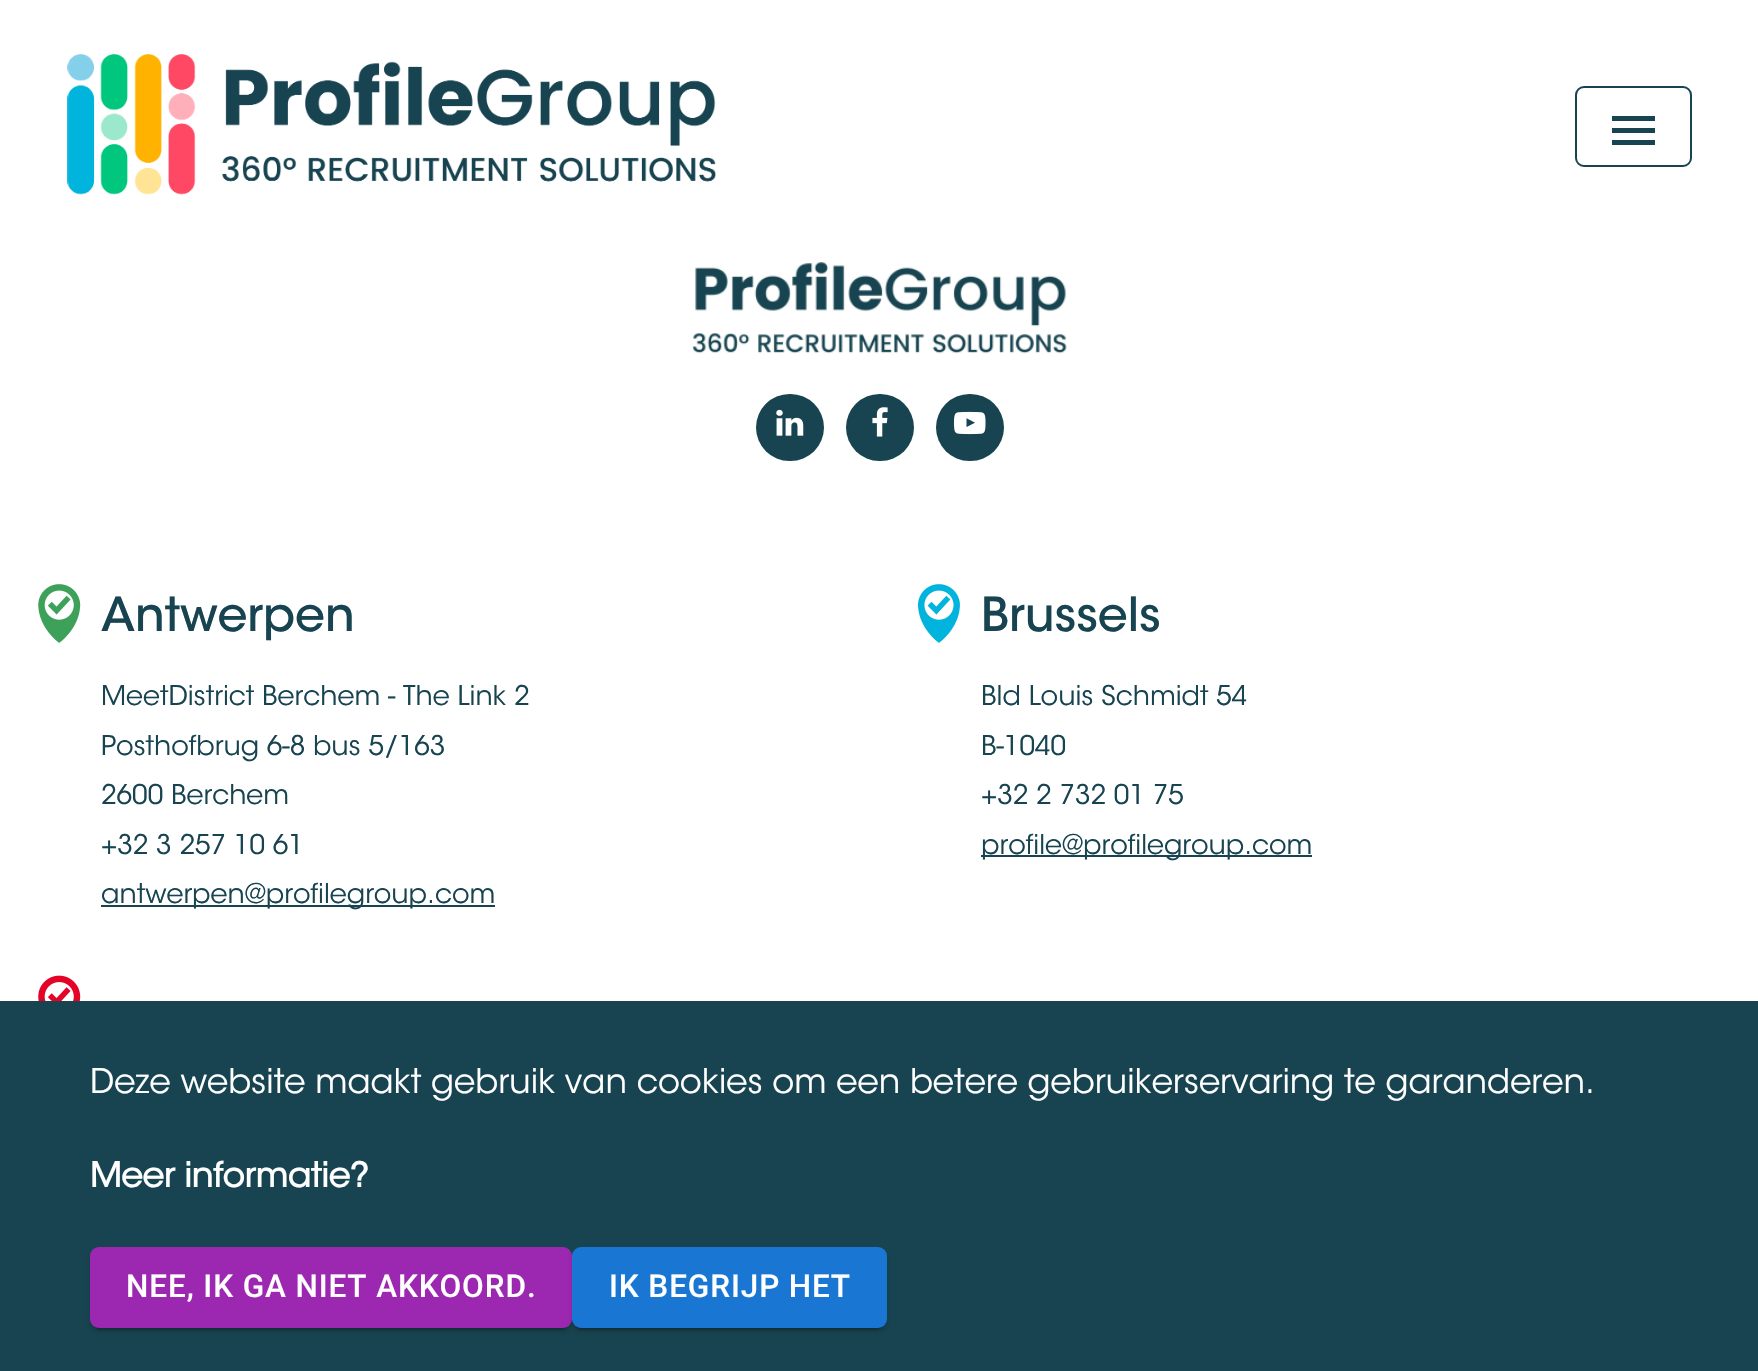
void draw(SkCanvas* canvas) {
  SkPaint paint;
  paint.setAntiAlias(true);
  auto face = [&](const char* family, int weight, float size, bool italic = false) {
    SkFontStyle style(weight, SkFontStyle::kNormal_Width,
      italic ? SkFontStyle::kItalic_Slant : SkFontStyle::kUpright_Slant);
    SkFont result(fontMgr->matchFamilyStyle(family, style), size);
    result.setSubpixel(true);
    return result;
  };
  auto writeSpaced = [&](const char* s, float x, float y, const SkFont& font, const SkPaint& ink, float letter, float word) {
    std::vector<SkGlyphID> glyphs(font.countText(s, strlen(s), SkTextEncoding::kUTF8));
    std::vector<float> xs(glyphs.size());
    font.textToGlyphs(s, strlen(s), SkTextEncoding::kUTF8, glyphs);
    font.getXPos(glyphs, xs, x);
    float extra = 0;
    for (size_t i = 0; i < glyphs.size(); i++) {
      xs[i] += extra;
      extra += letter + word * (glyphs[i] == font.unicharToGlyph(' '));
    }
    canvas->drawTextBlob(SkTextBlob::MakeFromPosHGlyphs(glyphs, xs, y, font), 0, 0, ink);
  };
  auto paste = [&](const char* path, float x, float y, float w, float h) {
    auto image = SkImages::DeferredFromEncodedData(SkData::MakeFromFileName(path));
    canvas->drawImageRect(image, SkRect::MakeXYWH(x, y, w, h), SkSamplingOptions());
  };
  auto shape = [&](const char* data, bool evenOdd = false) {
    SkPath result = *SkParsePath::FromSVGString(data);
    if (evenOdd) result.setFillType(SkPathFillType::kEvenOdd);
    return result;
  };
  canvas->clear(0xffffffff);
  paste("img/1.png", 67, 54, 649, 141);
  paint.setStroke(true);
  paint.setStrokeWidth(2);
  paint.setColor(0xff174450);
  canvas->drawRoundRect(SkRect::MakeXYWH(1576, 87, 115, 79), 8, 8, paint);
  paint.setStroke(false);
  canvas->drawPath(shape("M1612 145H1655V140H1612ZM1612 133H1655V128H1612ZM1612 116V121H1655V116Z"), paint);
  paste("img/2.png", 692, 254, 375, 100);
  canvas->drawRoundRect(SkRect::MakeXYWH(756, 394, 68, 67), 33.5f, 33.5f, paint);
  paste("img/3.png", 776, 409, 28, 27);
  canvas->drawRoundRect(SkRect::MakeXYWH(846, 394, 68, 67), 33.5f, 33.5f, paint);
  paste("img/4.png", 872, 407, 16, 30);
  canvas->drawRoundRect(SkRect::MakeXYWH(936, 394, 68, 67), 33.5f, 33.5f, paint);
  paste("img/5.png", 954, 411, 32, 24);
  paste("img/6.png", 38, 584, 43, 59);
  canvas->drawRect(SkRect::MakeXYWH(101, 905, 394, 2), paint);
  paste("img/7.png", 918, 584, 42, 59);
  canvas->drawRect(SkRect::MakeXYWH(981, 855, 331, 2), paint);
  paste("img/8.png", 38, 975, 43, 26);
  canvas->drawRect(SkRect::MakeXYWH(0, 1001, 1758, 370), paint);
  paint.setColor(0x24000000);
  paint.setMaskFilter(SkMaskFilter::MakeBlur(kNormal_SkBlurStyle, 2));
  canvas->drawRoundRect(SkRect::MakeXYWH(90, 1251, 482, 81), 9, 9, paint);
  paint.setMaskFilter(nullptr);
  paint.setColor(0x33000000);
  paint.setMaskFilter(SkMaskFilter::MakeBlur(kNormal_SkBlurStyle, 1));
  canvas->drawRoundRect(SkRect::MakeXYWH(95, 1258, 472, 72), 5, 5, paint);
  paint.setMaskFilter(nullptr);
  paint.setColor(0xff9c27b0);
  canvas->drawRoundRect(SkRect::MakeXYWH(90, 1247, 482, 81), 9, 9, paint);
  paint.setColor(0x24000000);
  paint.setMaskFilter(SkMaskFilter::MakeBlur(kNormal_SkBlurStyle, 2));
  canvas->drawRoundRect(SkRect::MakeXYWH(572, 1251, 315, 81), 9, 9, paint);
  paint.setMaskFilter(nullptr);
  paint.setColor(0x33000000);
  paint.setMaskFilter(SkMaskFilter::MakeBlur(kNormal_SkBlurStyle, 1));
  canvas->drawRoundRect(SkRect::MakeXYWH(576, 1258, 306, 72), 5, 5, paint);
  paint.setMaskFilter(nullptr);
  paint.setColor(0xff1976d2);
  canvas->drawRoundRect(SkRect::MakeXYWH(572, 1247, 315, 81), 9, 9, paint);
  auto f0 = face("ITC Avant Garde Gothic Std", 500, 46.75f);
  paint.setColor(0xff174450);
  canvas->drawString("Antwerpen", 101, 631, f0, paint);
  auto f1 = face("ITC Avant Garde Gothic Std", 300, 27);
  {
    const struct { const char* s; float x, y; } items[] = {
      {"MeetDistrict Berchem - The Link 2", 101, 705},
      {"Posthofbrug 6-8 bus 5/163", 101, 755},
      {"2600 Berchem", 101, 804},
      {"+32 3 257 10 61", 101, 854},
      {"antwerpen@profilegroup.com", 101, 903},
    };
    for (auto [s, x, y] : items) {
      canvas->drawString(s, x, y, f1, paint);
    }
  }
  canvas->drawString("Brussels", 981, 631, f0, paint);
  {
    const struct { const char* s; float x, y; } items[] = {
      {"Bld Louis Schmidt 54", 981, 705},
      {"B-1040", 981, 755},
      {"+32 2 732 01 75", 981, 804},
      {"profile@profilegroup.com", 981, 854},
    };
    for (auto [s, x, y] : items) {
      canvas->drawString(s, x, y, f1, paint);
    }
  }
  auto f2 = face("ITC Avant Garde Gothic Std", 300, 33.75f);
  paint.setColor(0xffffffff);
  canvas->drawString("Deze website maakt gebruik van cookies om een betere gebruikerservaring te garanderen.", 90, 1093, f2, paint);
  auto f3 = face("ITC Avant Garde Gothic Std", 700, 33.75f);
  canvas->drawString("Meer informatie?", 90, 1187, f3, paint);
  auto f4 = face("Roboto", 500, 31.5f);
  writeSpaced("NEE, IK GA NIET AKKOORD.", 126, 1297, f4, paint, 0.9f, 0);
  writeSpaced("IK BEGRIJP HET", 609, 1297, f4, paint, 0.9f, 0);
}
